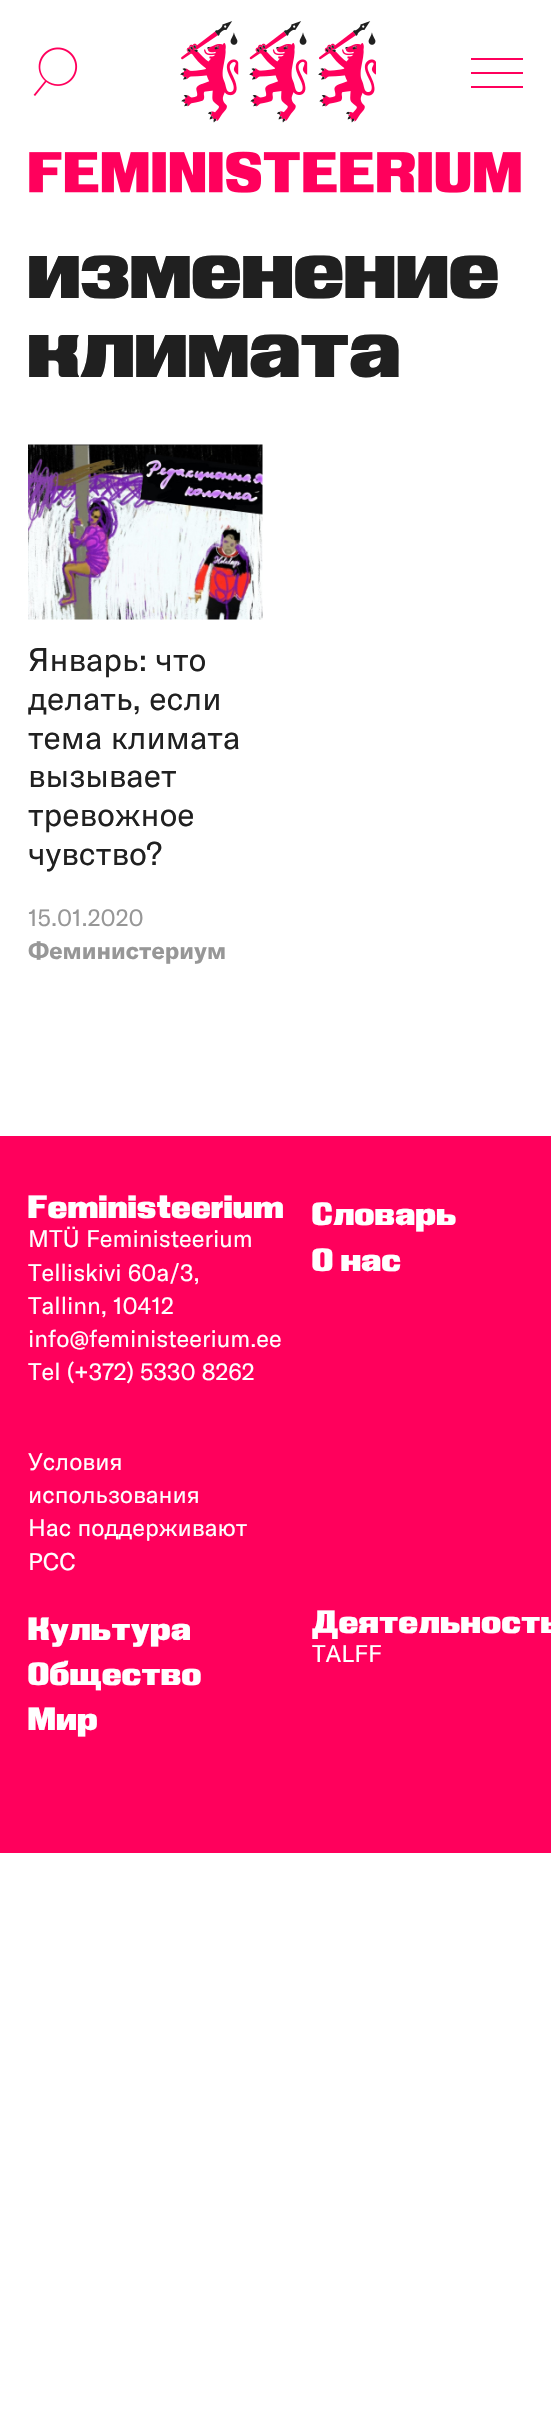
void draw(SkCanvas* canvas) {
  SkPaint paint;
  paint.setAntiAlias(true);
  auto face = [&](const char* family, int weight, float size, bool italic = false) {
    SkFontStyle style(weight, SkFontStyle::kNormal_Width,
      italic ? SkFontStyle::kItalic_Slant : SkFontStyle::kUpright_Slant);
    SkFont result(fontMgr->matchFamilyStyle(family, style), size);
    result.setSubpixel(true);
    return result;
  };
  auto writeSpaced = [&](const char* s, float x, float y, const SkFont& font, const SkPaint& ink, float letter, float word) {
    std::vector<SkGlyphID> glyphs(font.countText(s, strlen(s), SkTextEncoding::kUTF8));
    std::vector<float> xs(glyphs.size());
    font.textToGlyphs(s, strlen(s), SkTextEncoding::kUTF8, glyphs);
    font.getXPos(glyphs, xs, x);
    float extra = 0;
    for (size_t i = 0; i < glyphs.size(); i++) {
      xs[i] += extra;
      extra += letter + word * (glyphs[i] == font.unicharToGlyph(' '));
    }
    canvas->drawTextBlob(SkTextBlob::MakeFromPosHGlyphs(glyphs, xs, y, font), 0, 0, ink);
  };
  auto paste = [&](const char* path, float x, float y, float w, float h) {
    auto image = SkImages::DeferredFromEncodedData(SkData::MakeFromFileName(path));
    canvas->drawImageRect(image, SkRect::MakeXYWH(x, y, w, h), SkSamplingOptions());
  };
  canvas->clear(0xffffffff);
  paste("img/1.png", 33, 47, 45, 49);
  paste("img/2.png", 180, 21, 196, 102);
  {
    const struct { float x, y, w, h; SkColor color; } items[] = {
      {471, 72, 52, 2, 0xffff005c},
      {471, 58, 52, 2, 0xffff005c},
      {471, 86, 52, 2, 0xffff005c},
    };
    for (auto [x, y, w, h, color] : items) {
      paint.setColor(color);
      canvas->drawRect(SkRect::MakeXYWH(x, y, w, h), paint);
    }
  }
  paste("img/3.png", 29, 151, 492, 42);
  paste("img/4.png", 28, 444, 235, 176);
  canvas->drawRect(SkRect::MakeXYWH(0, 1136, 551, 717), paint);
  auto f0 = face("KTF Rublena", 900, 84);
  paint.setColor(0xff202020);
  writeSpaced("изменение", 28, 298, f0, paint, 1, 0);
  writeSpaced("климата", 28, 377, f0, paint, 1, 0);
  auto f1 = face("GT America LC", 400, 32.25f);
  {
    const struct { const char* s; float x, y; } items[] = {
      {"Январь: что", 28, 671},
      {"делать, если", 28, 710},
      {"тема климата", 28, 749},
      {"вызывает", 28, 787},
      {"тревожное", 28, 826},
      {"чувство?", 28, 865},
    };
    for (auto [s, x, y] : items) {
      canvas->drawString(s, x, y, f1, paint);
    }
  }
  auto f2 = face("GT America LC", 400, 23.75f);
  paint.setColor(0xff979797);
  canvas->drawString("15.01.2020", 28, 926, f2, paint);
  auto f3 = face("GT America LC", 700, 23.75f);
  canvas->drawString("Феминистериум", 28, 959, f3, paint);
  auto f4 = face("KTF Rublena", 900, 32.25f);
  paint.setColor(0xffffffff);
  writeSpaced("Feministeerium", 28, 1218, f4, paint, 1, 0);
  {
    const struct { const char* s; float x, y; } items[] = {
      {"MTÜ Feministeerium", 28, 1247},
      {"Telliskivi 60a/3,", 28, 1281},
      {"Tallinn, 10412", 28, 1314},
      {"info@feministeerium.ee", 28, 1347},
      {"Tel (+372) 5330 8262", 28, 1380},
      {"Условия", 28, 1470},
      {"использования", 28, 1503},
      {"Нас поддерживают", 28, 1536},
      {"PCC", 28, 1570},
    };
    for (auto [s, x, y] : items) {
      canvas->drawString(s, x, y, f2, paint);
    }
  }
  {
    const struct { const char* s; float x, y; } items[] = {
      {"Словарь", 312, 1225},
      {"O нас", 312, 1271},
      {"Культура", 28, 1640},
      {"Общество", 28, 1685},
      {"Мир", 28, 1730},
      {"Деятельность", 312, 1633},
    };
    for (auto [s, x, y] : items) {
      writeSpaced(s, x, y, f4, paint, 1, 0);
    }
  }
  canvas->drawString("TALFF", 312, 1662, f2, paint);
}
